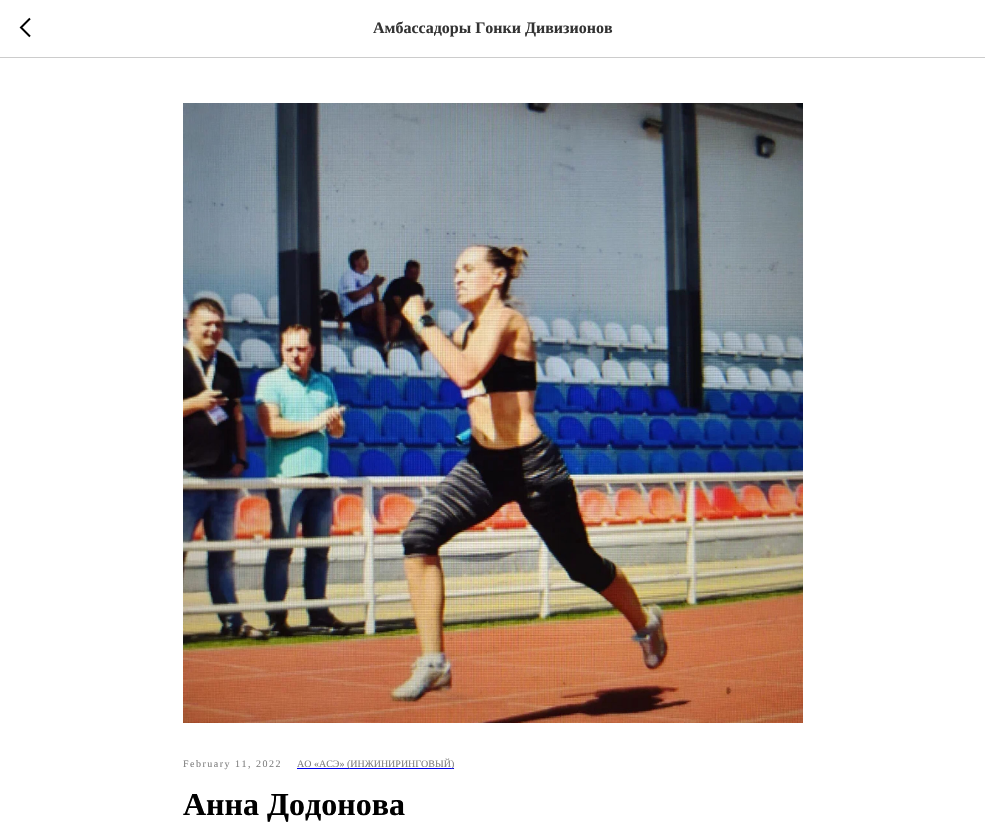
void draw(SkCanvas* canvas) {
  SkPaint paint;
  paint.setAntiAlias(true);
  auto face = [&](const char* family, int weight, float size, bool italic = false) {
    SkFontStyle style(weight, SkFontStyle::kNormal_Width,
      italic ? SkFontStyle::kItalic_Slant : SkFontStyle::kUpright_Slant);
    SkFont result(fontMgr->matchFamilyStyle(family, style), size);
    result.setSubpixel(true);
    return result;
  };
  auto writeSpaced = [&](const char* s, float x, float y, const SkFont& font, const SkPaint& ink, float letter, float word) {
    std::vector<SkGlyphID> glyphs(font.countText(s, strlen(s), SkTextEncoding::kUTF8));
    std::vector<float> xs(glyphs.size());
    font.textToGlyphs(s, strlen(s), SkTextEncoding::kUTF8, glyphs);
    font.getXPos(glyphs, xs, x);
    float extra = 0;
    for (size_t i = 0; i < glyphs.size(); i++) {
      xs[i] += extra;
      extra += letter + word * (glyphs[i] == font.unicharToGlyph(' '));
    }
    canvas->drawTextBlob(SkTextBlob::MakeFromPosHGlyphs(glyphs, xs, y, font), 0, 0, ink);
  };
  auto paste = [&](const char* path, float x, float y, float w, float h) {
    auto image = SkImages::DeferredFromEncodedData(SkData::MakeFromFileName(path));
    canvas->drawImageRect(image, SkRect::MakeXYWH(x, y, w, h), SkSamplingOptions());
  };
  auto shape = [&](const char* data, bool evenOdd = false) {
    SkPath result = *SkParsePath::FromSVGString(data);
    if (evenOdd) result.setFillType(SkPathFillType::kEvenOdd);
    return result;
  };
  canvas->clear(0xffffffff);
  paint.setColor(0xffcccccc);
  canvas->drawRect(SkRect::MakeXYWH(0, 57, 985, 1), paint);
  paint.setStroke(true);
  paint.setStrokeWidth(2);
  paint.setColor(0xff000000);
  canvas->drawPath(shape("M30 36.5L21 27.5L30 18.5"), paint);
  paste("img/1.png", 183, 103, 620, 620);
  paint.setStroke(false);
  paint.setColor(0xff0000ee);
  canvas->drawRect(SkRect::MakeXYWH(297, 768, 157, 1), paint);
  auto f0 = face("Liberation Serif", 700, 16);
  paint.setColor(0xff333333);
  canvas->drawString("Амбассадоры Гонки Дивизионов", 373, 33, f0, paint);
  auto f1 = face("Liberation Serif", 400, 10);
  paint.setColor(0xff808080);
  writeSpaced("February 11, 2022", 183, 767, f1, paint, 1.5f, 0);
  canvas->drawString("АО «АСЭ» (ИНЖИНИРИНГОВЫЙ)", 297, 767, f1, paint);
  auto f2 = face("Liberation Serif", 700, 32);
  paint.setColor(0xff000000);
  canvas->drawString("Анна Додонова", 183, 815, f2, paint);
}
